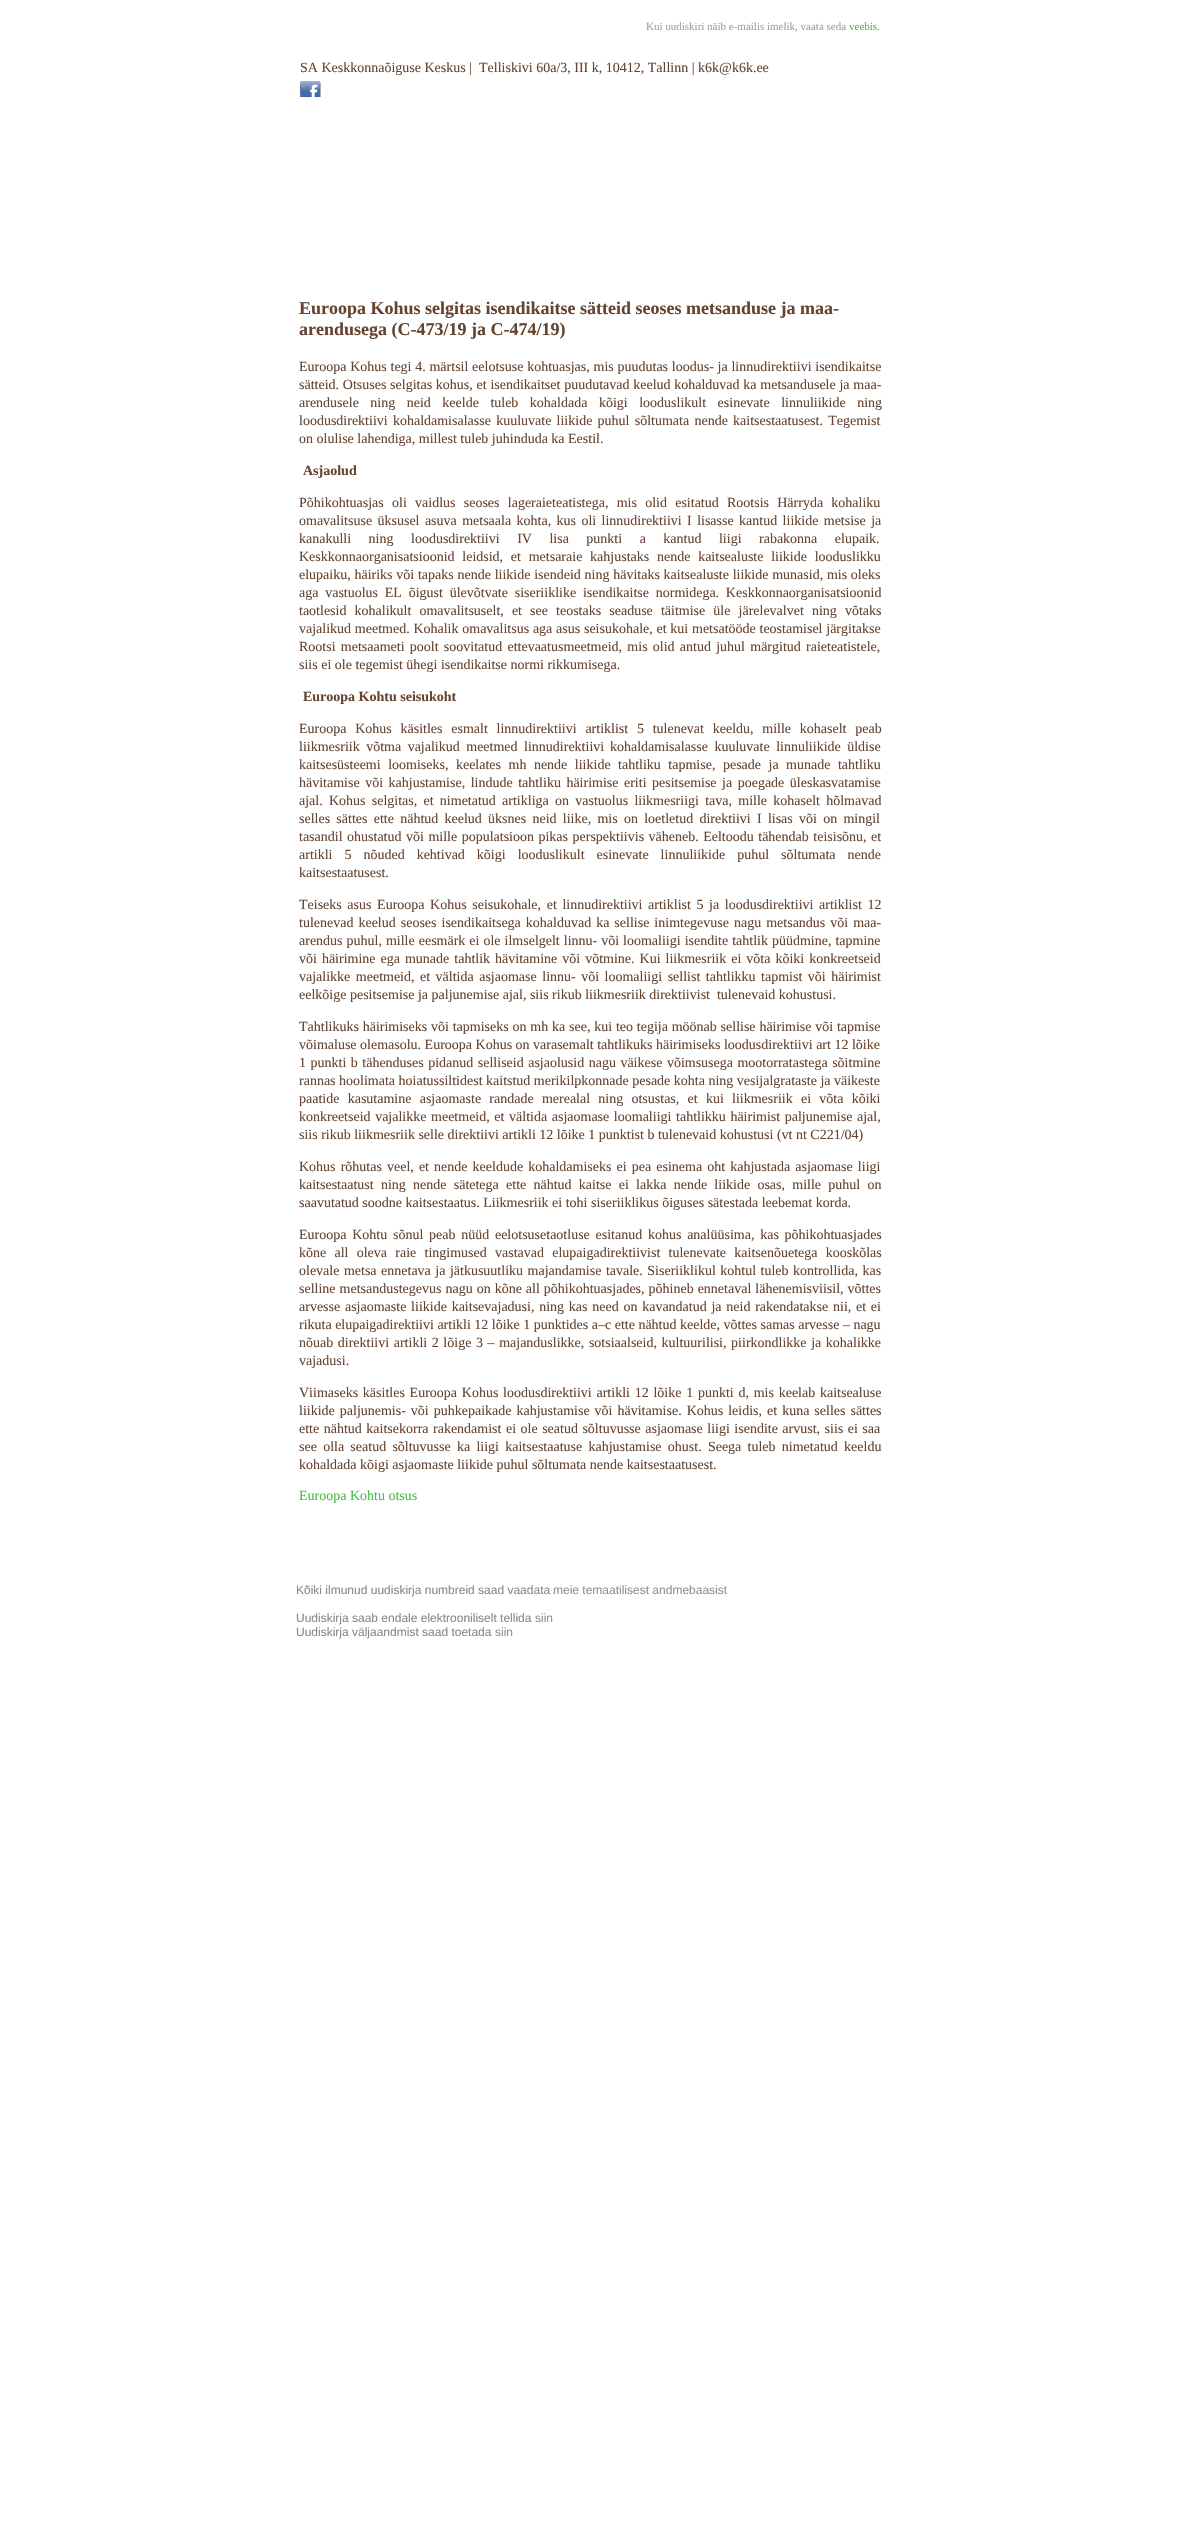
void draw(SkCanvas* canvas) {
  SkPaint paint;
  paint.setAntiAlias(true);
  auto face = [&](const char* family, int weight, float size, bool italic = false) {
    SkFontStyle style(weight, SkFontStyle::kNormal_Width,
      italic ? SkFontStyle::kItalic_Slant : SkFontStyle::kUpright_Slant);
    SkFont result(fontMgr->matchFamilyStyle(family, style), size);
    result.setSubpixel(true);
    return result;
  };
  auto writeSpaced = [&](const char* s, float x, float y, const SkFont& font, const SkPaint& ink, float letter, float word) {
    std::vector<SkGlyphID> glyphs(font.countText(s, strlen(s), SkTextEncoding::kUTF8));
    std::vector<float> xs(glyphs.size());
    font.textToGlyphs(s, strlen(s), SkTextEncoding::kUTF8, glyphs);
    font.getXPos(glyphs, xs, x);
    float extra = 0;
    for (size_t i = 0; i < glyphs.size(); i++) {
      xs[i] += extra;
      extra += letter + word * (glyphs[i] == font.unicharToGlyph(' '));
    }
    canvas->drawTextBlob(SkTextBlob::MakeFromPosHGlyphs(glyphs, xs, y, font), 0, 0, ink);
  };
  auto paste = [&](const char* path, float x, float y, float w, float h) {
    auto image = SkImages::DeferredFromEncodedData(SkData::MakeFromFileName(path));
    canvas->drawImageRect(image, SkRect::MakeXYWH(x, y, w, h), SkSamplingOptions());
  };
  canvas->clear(0xffffffff);
  paste("img/1.png", 300, 81, 21, 16);
  auto f0 = face("Liberation Serif", 400, 11);
  paint.setColor(0xffa49f9c);
  canvas->drawString("Kui uudiskiri näib e-mailis imelik, vaata seda", 646, 30, f0, paint);
  paint.setColor(0xff50b948);
  canvas->drawString("veebis.", 849, 30, f0, paint);
  auto f1 = face("Liberation Serif", 400, 14);
  paint.setColor(0xff654430);
  canvas->drawString("SA Keskkonnaõiguse Keskus |", 300, 72, f1, paint);
  canvas->drawString("Telliskivi 60a/3, III k, 10412, Tallinn | k6k@k6k.ee", 479, 72, f1, paint);
  auto f2 = face("Liberation Serif", 700, 18);
  canvas->drawString("Euroopa Kohus selgitas isendikaitse sätteid seoses metsanduse ja maa-", 299, 314, f2, paint);
  canvas->drawString("arendusega (C-473/19 ja C-474/19)", 299, 335, f2, paint);
  writeSpaced("Euroopa Kohus tegi 4. märtsil eelotsuse kohtuasjas, mis puudutas loodus- ja linnudirektiivi isendikaitse", 299, 371, f1, paint, 0, 0.25f);
  writeSpaced("sätteid. Otsuses selgitas kohus, et isendikaitset puudutavad keelud kohalduvad ka metsandusele ja maa-", 299, 389, f1, paint, 0, 0.25f);
  writeSpaced("arendusele ning neid keelde tuleb kohaldada kõigi looduslikult esinevate linnuliikide ning", 299, 407, f1, paint, 0, 8);
  writeSpaced("loodusdirektiivi kohaldamisalasse kuuluvate liikide puhul sõltumata nende kaitsestaatusest. Tegemist", 299, 425, f1, paint, 0, 1.75f);
  canvas->drawString("on olulise lahendiga, millest tuleb juhinduda ka Eestil.", 299, 443, f1, paint);
  auto f3 = face("Liberation Serif", 700, 14);
  canvas->drawString("Asjaolud", 303, 475, f3, paint);
  writeSpaced("Põhikohtuasjas oli vaidlus seoses lageraieteatistega, mis olid esitatud Rootsis Härryda kohaliku", 299, 507, f1, paint, 0, 4.75f);
  writeSpaced("omavalitsuse üksusel asuva metsaala kohta, kus oli linnudirektiivi I lisasse kantud liikide metsise ja", 299, 525, f1, paint, 0, 1.9f);
  writeSpaced("kanakulli ning loodusdirektiivi IV lisa punkti a kantud liigi rabakonna elupaik.", 299, 543, f1, paint, 0, 14);
  writeSpaced("Keskkonnaorganisatsioonid leidsid, et metsaraie kahjustaks nende kaitsealuste liikide looduslikku", 299, 561, f1, paint, 0, 4.25f);
  writeSpaced("elupaiku, häiriks või tapaks nende liikide isendeid ning hävitaks kaitsealuste liikide munasid, mis oleks", 299, 579, f1, paint, 0, 0.25f);
  writeSpaced("aga vastuolus EL õigust ülevõtvate siseriiklike isendikaitse normidega. Keskkonnaorganisatsioonid", 299, 597, f1, paint, 0, 3.25f);
  writeSpaced("taotlesid kohalikult omavalitsuselt, et see teostaks seaduse täitmise üle järelevalvet ning võtaks", 299, 615, f1, paint, 0, 4.6f);
  writeSpaced("vajalikud meetmed. Kohalik omavalitsus aga asus seisukohale, et kui metsatööde teostamisel järgitakse", 299, 633, f1, paint, 0, 0.25f);
  writeSpaced("Rootsi metsaameti poolt soovitatud ettevaatusmeetmeid, mis olid antud juhul märgitud raieteatistele,", 299, 651, f1, paint, 0, 1.75f);
  canvas->drawString("siis ei ole tegemist ühegi isendikaitse normi rikkumisega.", 299, 669, f1, paint);
  canvas->drawString("Euroopa Kohtu seisukoht", 303, 701, f3, paint);
  writeSpaced("Euroopa Kohus käsitles esmalt linnudirektiivi artiklist 5 tulenevat keeldu, mille kohaselt peab", 299, 733, f1, paint, 0, 5.25f);
  writeSpaced("liikmesriik võtma vajalikud meetmed linnudirektiivi", 299, 751, f1, paint, 0, 3);
  writeSpaced("kohaldamisalasse kuuluvate linnuliikide üldise", 610, 751, f1, paint, 0, 3);
  writeSpaced("kaitsesüsteemi loomiseks, keelates mh nende liikide tahtliku tapmise, pesade ja munade tahtliku", 299, 769, f1, paint, 0, 4);
  writeSpaced("hävitamise või kahjustamise, lindude tahtliku häirimise eriti pesitsemise ja poegade üleskasvatamise", 299, 787, f1, paint, 0, 2);
  writeSpaced("ajal. Kohus selgitas, et nimetatud artikliga on vastuolus liikmesriigi tava, mille kohaselt hõlmavad", 299, 805, f1, paint, 0, 2.75f);
  writeSpaced("selles sättes ette nähtud keelud üksnes neid liike, mis on loetletud direktiivi I lisas või on mingil", 299, 823, f1, paint, 0, 2.75f);
  writeSpaced("tasandil ohustatud või mille populatsioon pikas perspektiivis väheneb. Eeltoodu tähendab teisisõnu, et", 299, 841, f1, paint, 0, 1);
  writeSpaced("artikli 5 nõuded kehtivad kõigi looduslikult esinevate linnuliikide puhul sõltumata nende", 299, 859, f1, paint, 0, 8.5f);
  canvas->drawString("kaitsestaatusest.", 299, 877, f1, paint);
  writeSpaced("Teiseks asus Euroopa Kohus seisukohale, et linnudirektiivi artiklist 5 ja loodusdirektiivi artiklist 12", 299, 909, f1, paint, 0, 2.1f);
  writeSpaced("tulenevad keelud seoses isendikaitsega kohalduvad ka sellise inimtegevuse nagu metsandus või maa-", 299, 927, f1, paint, 0, 1.5f);
  writeSpaced("arendus puhul, mille eesmärk ei ole ilmselgelt linnu- või loomaliigi isendite tahtlik püüdmine, tapmine", 299, 945, f1, paint, 0, 0.5f);
  writeSpaced("või häirimine ega munade tahtlik hävitamine või võtmine. Kui liikmesriik ei võta kõiki konkreetseid", 299, 963, f1, paint, 0, 1.5f);
  writeSpaced("vajalikke meetmeid, et vältida asjaomase linnu- või loomaliigi sellist tahtlikku tapmist või häirimist", 299, 981, f1, paint, 0, 2);
  canvas->drawString("eelkõige pesitsemise ja paljunemise ajal, siis rikub liikmesriik direktiivist  tulenevaid kohustusi.", 299, 999, f1, paint);
  writeSpaced("Tahtlikuks häirimiseks või tapmiseks on mh ka see, kui teo tegija möönab sellise häirimise või tapmise", 299, 1031, f1, paint, 0, 0.3f);
  canvas->drawString("võimaluse olemasolu. Euroopa Kohus on varasemalt tahtlikuks häirimiseks loodusdirektiivi art 12 lõike", 299, 1049, f1, paint);
  writeSpaced("1 punkti b tähenduses pidanud selliseid asjaolusid nagu väikese võimsusega mootorratastega sõitmine", 299, 1067, f1, paint, 0, 1);
  canvas->drawString("rannas hoolimata hoiatussiltidest kaitstud merikilpkonnade pesade kohta ning vesijalgrataste ja väikeste", 299, 1085, f1, paint);
  writeSpaced("paatide kasutamine asjaomaste randade merealal ning otsustas, et kui liikmesriik ei võta kõiki", 299, 1103, f1, paint, 0, 4.75f);
  writeSpaced("konkreetseid vajalikke meetmeid, et vältida asjaomase loomaliigi tahtlikku häirimist paljunemise ajal,", 299, 1121, f1, paint, 0, 1.1f);
  canvas->drawString("siis rikub liikmesriik selle direktiivi artikli 12 lõike 1 punktist b tulenevaid kohustusi (vt nt C‑221/04)", 299, 1139, f1, paint);
  writeSpaced("Kohus rõhutas veel, et nende keeldude kohaldamiseks ei pea esinema oht kahjustada asjaomase liigi", 299, 1171, f1, paint, 0, 1.6f);
  writeSpaced("kaitsestaatust ning nende sätetega ette nähtud kaitse ei lakka nende liikide osas, mille puhul on", 299, 1189, f1, paint, 0, 3.75f);
  canvas->drawString("saavutatud soodne kaitsestaatus. Liikmesriik ei tohi siseriiklikus õiguses sätestada leebemat korda.", 299, 1207, f1, paint);
  writeSpaced("Euroopa Kohtu sõnul peab nüüd eelotsusetaotluse esitanud kohus analüüsima, kas põhikohtuasjades", 299, 1239, f1, paint, 0, 2.25f);
  writeSpaced("kõne all oleva raie tingimused vastavad elupaigadirektiivist tulenevate kaitsenõuetega kooskõlas", 299, 1257, f1, paint, 0, 4.75f);
  writeSpaced("olevale metsa ennetava ja jätkusuutliku majandamise tavale. Siseriiklikul kohtul tuleb kontrollida, kas", 299, 1275, f1, paint, 0, 1);
  writeSpaced("selline metsandustegevus nagu on kõne all põhikohtuasjades, põhineb ennetaval lähenemisviisil, võttes", 299, 1293, f1, paint, 0, 0.5f);
  writeSpaced("arvesse asjaomaste liikide kaitsevajadusi, ning kas need on kavandatud ja neid rakendatakse nii, et ei", 299, 1311, f1, paint, 0, 1.25f);
  canvas->drawString("rikuta elupaigadirektiivi artikli 12 lõike 1 punktides a–c ette nähtud keelde, võttes samas arvesse – nagu", 299, 1329, f1, paint);
  writeSpaced("nõuab direktiivi artikli 2 lõige 3 – majanduslikke, sotsiaalseid, kultuurilisi, piirkondlikke ja kohalikke", 299, 1347, f1, paint, 0, 1.1f);
  canvas->drawString("vajadusi.", 299, 1365, f1, paint);
  writeSpaced("Viimaseks käsitles Euroopa Kohus loodusdirektiivi artikli 12 lõike 1 punkti d, mis keelab kaitsealuse", 299, 1397, f1, paint, 0, 1.25f);
  writeSpaced("liikide paljunemis- või puhkepaikade kahjustamise või hävitamise. Kohus leidis, et kuna selles sättes", 299, 1415, f1, paint, 0, 1.5f);
  writeSpaced("ette nähtud kaitsekorra rakendamist ei ole seatud sõltuvusse asjaomase liigi isendite arvust, siis ei saa", 299, 1433, f1, paint, 0, 1);
  writeSpaced("see olla seatud sõltuvusse ka liigi kaitsestaatuse kahjustamise ohust. Seega tuleb nimetatud keeldu", 299, 1451, f1, paint, 0, 2.75f);
  canvas->drawString("kohaldada kõigi asjaomaste liikide puhul sõltumata nende kaitsestaatusest.", 299, 1469, f1, paint);
  paint.setColor(0xff50b948);
  canvas->drawString("Euroopa Kohtu otsus", 299, 1500, f1, paint);
  auto f4 = face("Liberation Sans", 400, 12);
  paint.setColor(0xff8b8887);
  canvas->drawString("Kõiki ilmunud uudiskirja numbreid saad vaadata", 296, 1594, f4, paint);
  paint.setColor(0xff948f8c);
  canvas->drawString("meie temaatilisest andmebaasist", 553, 1594, f4, paint);
  paint.setColor(0xff8b8887);
  canvas->drawString("Uudiskirja saab endale elektrooniliselt tellida", 296, 1622, f4, paint);
  paint.setColor(0xff948f8c);
  canvas->drawString("siin", 535, 1622, f4, paint);
  paint.setColor(0xff8b8887);
  canvas->drawString("Uudiskirja väljaandmist saad toetada", 296, 1636, f4, paint);
  paint.setColor(0xff948f8c);
  canvas->drawString("siin", 495, 1636, f4, paint);
}
